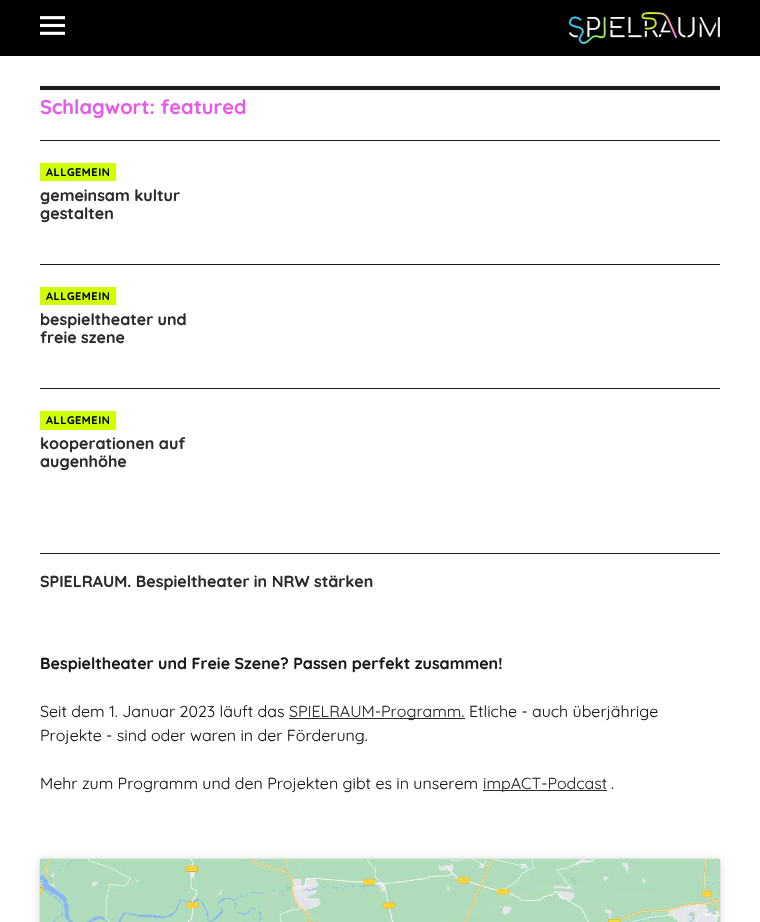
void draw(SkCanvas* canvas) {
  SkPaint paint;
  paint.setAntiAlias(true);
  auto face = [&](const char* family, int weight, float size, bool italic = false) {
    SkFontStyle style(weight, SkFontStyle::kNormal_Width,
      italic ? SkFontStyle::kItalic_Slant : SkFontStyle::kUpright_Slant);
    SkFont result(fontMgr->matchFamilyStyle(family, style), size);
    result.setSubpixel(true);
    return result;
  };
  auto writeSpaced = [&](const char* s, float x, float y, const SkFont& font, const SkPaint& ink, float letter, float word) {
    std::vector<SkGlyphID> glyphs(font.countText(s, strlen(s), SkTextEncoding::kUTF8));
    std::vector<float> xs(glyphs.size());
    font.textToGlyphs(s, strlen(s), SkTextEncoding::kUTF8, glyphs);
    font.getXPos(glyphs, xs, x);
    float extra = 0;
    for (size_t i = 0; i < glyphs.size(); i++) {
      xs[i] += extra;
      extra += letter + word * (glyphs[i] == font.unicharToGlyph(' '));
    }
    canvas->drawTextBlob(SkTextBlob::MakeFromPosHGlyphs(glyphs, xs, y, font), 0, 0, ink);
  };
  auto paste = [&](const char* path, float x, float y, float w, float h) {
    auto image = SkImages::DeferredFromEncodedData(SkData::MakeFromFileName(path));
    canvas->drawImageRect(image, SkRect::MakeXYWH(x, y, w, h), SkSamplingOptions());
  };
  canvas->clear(0xffffffff);
  paint.setColor(0xff000000);
  canvas->drawRect(SkRect::MakeXYWH(0, 0, 760, 56), paint);
  paste("img/1.png", 40, 16, 25, 19);
  paste("img/2.png", 568, 12, 152, 32);
  {
    const struct { float x, y, w, h; SkColor color; } items[] = {
      {40, 86, 680, 4, 0xff1a1a1a},
      {40, 140, 680, 1, 0xff1a1a1a},
      {40, 163, 76, 18, 0xffcfff00},
      {40, 264, 680, 1, 0xff1a1a1a},
      {40, 287, 76, 18, 0xffcfff00},
      {40, 388, 680, 1, 0xff1a1a1a},
      {40, 411, 76, 19, 0xffcfff00},
      {40, 553, 680, 1, 0xff1a1a1a},
      {289, 718, 176, 1, 0xff2b2b2b},
      {483, 790, 124, 1, 0xff2b2b2b},
    };
    for (auto [x, y, w, h, color] : items) {
      paint.setColor(color);
      canvas->drawRect(SkRect::MakeXYWH(x, y, w, h), paint);
    }
  }
  paint.setColor(0x26000000);
  paint.setMaskFilter(SkMaskFilter::MakeBlur(kNormal_SkBlurStyle, 5));
  canvas->drawRoundRect(SkRect::MakeXYWH(40, 860, 680, 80), 3, 3, paint);
  paint.setMaskFilter(nullptr);
  paint.setColor(0x80000000);
  paint.setMaskFilter(SkMaskFilter::MakeBlur(kNormal_SkBlurStyle, 0.5f));
  canvas->drawRoundRect(SkRect::MakeXYWH(40, 859, 680, 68), 3, 3, paint);
  paint.setMaskFilter(nullptr);
  paste("img/3.png", 40, 859, 680, 63);
  auto f0 = face("Quicksand", 300, 20);
  paint.setColor(0xffe45be7);
  canvas->drawString("Schlagwort: featured", 40, 114, f0, paint);
  auto f1 = face("Quicksand", 300, 11);
  paint.setColor(0xff000000);
  writeSpaced("ALLGEMEIN", 46, 176, f1, paint, 0.5f, 0);
  auto f2 = face("Quicksand", 300, 16);
  paint.setColor(0xff2b2b2b);
  canvas->drawString("gemeinsam kultur", 40, 201, f2, paint);
  canvas->drawString("gestalten", 40, 219, f2, paint);
  paint.setColor(0xff000000);
  writeSpaced("ALLGEMEIN", 46, 300, f1, paint, 0.5f, 0);
  paint.setColor(0xff2b2b2b);
  canvas->drawString("bespieltheater und", 40, 325, f2, paint);
  canvas->drawString("freie szene", 40, 343, f2, paint);
  paint.setColor(0xff000000);
  writeSpaced("ALLGEMEIN", 46, 424, f1, paint, 0.5f, 0);
  paint.setColor(0xff2b2b2b);
  {
    const struct { const char* s; float x, y; } items[] = {
      {"kooperationen auf", 40, 449},
      {"augenhöhe", 40, 467},
      {"SPIELRAUM. Bespieltheater in NRW stärken", 40, 587},
    };
    for (auto [s, x, y] : items) {
      canvas->drawString(s, x, y, f2, paint);
    }
  }
  paint.setColor(0xff1a1a1a);
  canvas->drawString("Bespieltheater und Freie Szene? Passen perfekt zusammen!", 40, 669, f2, paint);
  auto f3 = face("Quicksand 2", 300, 16);
  canvas->drawString("Seit dem 1. Januar 2023 läuft das", 40, 717, f3, paint);
  paint.setColor(0xff2b2b2b);
  canvas->drawString("SPIELRAUM-Programm.", 289, 717, f3, paint);
  paint.setColor(0xff1a1a1a);
  {
    const struct { const char* s; float x, y; } items[] = {
      {"Etliche - auch überjährige", 469, 717},
      {"Projekte - sind oder waren in der Förderung.", 40, 741},
      {"Mehr zum Programm und den Projekten gibt es in unserem", 40, 789},
    };
    for (auto [s, x, y] : items) {
      canvas->drawString(s, x, y, f3, paint);
    }
  }
  paint.setColor(0xff2b2b2b);
  canvas->drawString("impACT-Podcast", 483, 789, f3, paint);
  paint.setColor(0xff1a1a1a);
  canvas->drawString(".", 611, 789, f3, paint);
}
